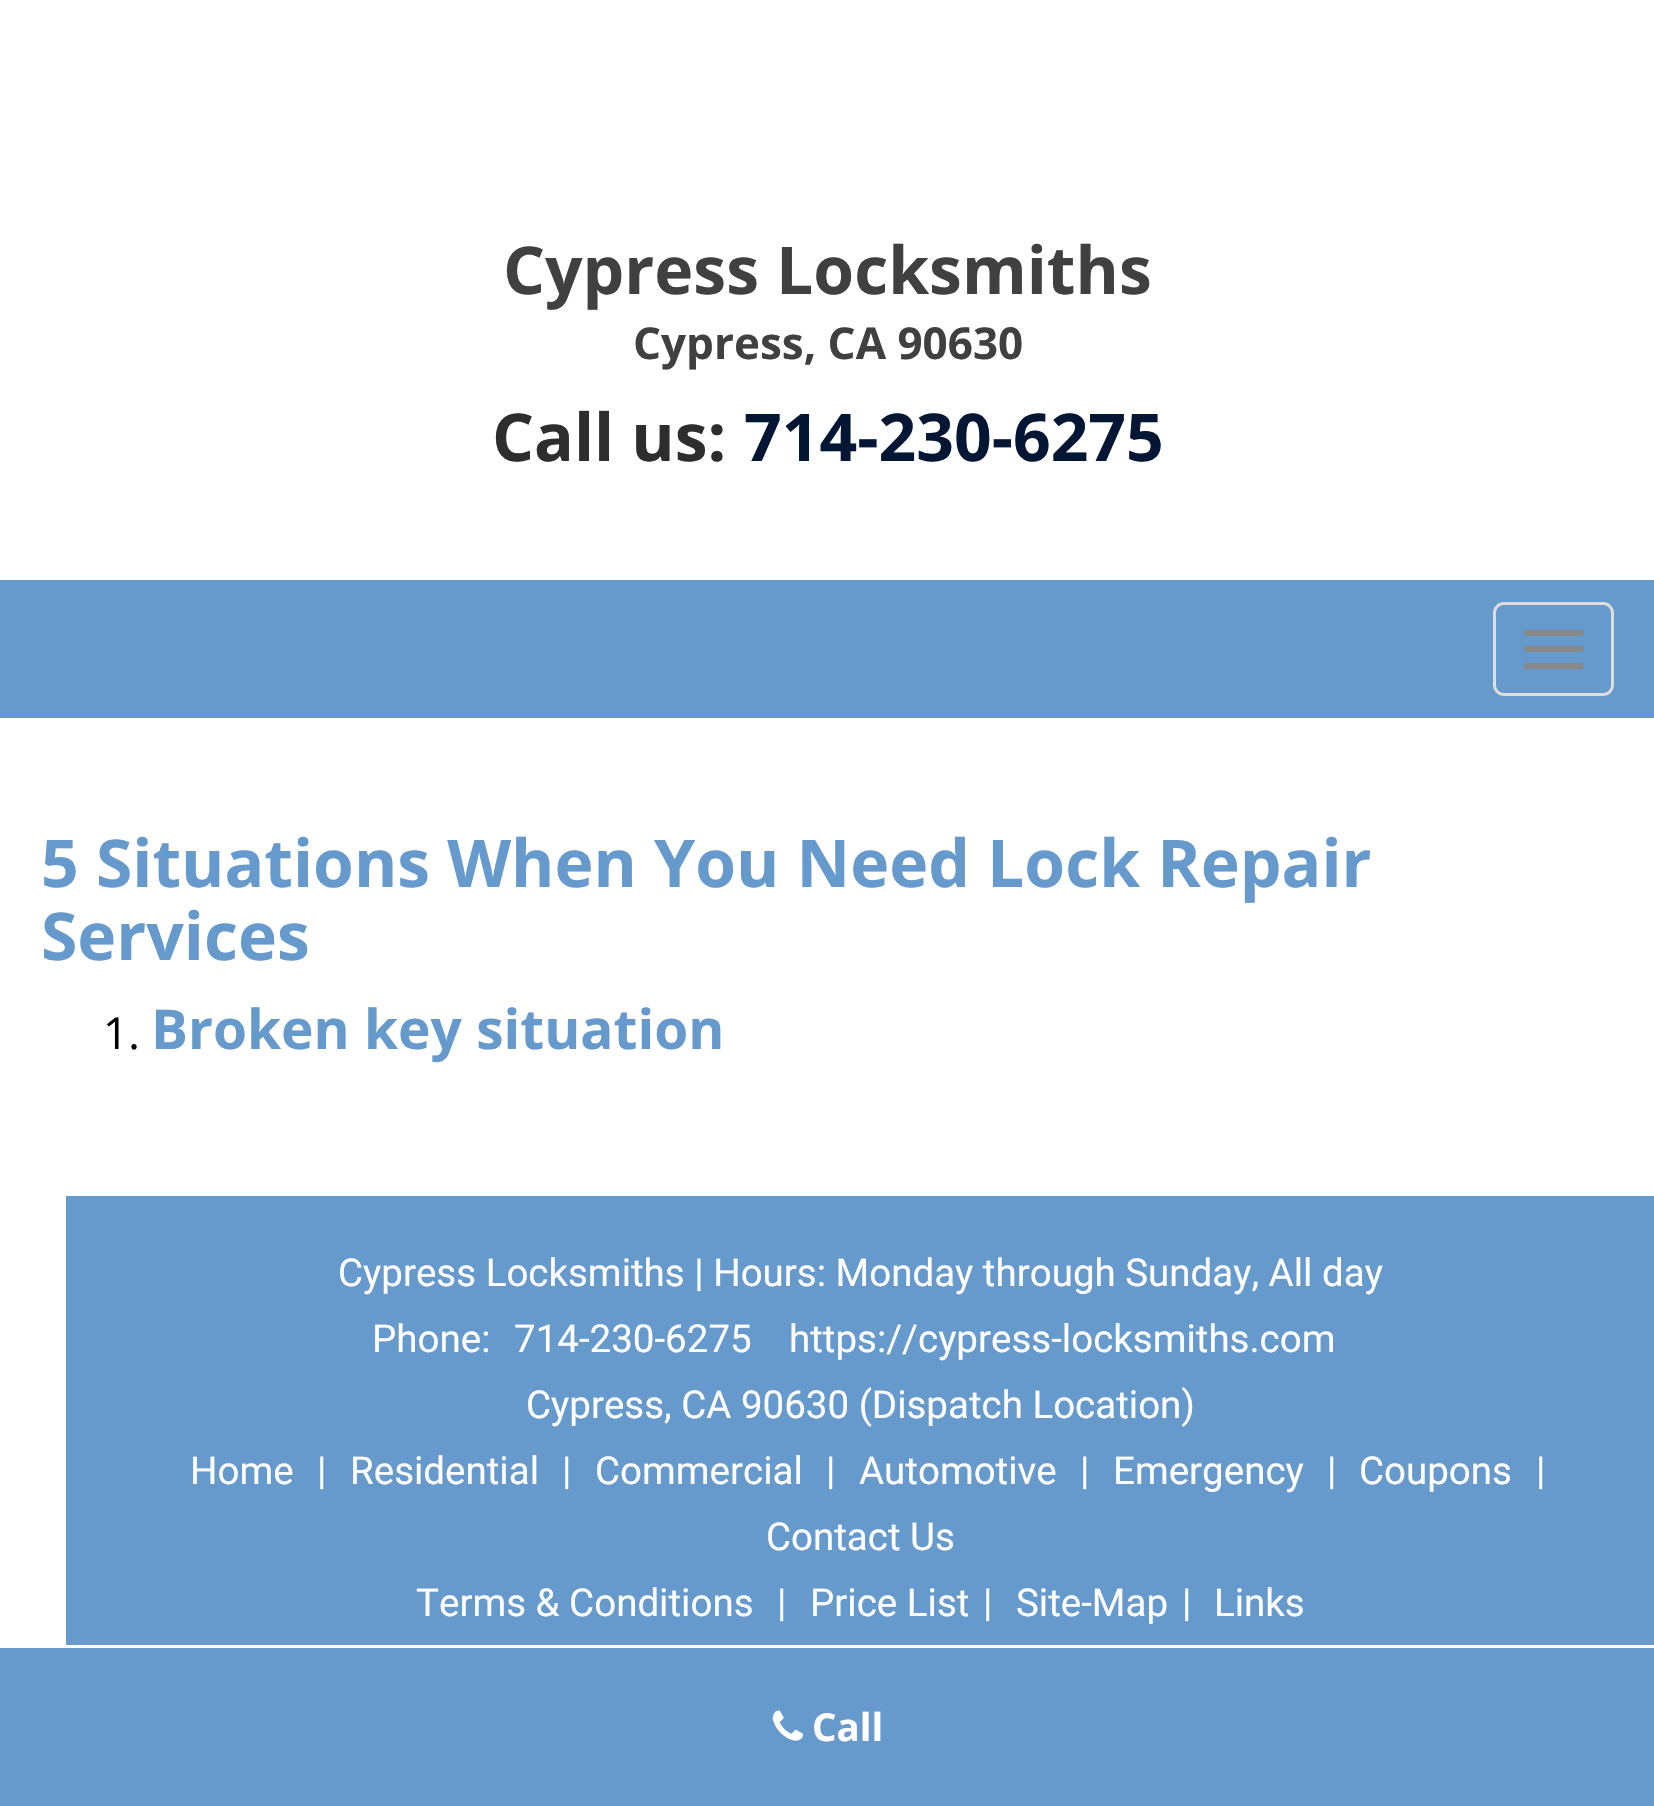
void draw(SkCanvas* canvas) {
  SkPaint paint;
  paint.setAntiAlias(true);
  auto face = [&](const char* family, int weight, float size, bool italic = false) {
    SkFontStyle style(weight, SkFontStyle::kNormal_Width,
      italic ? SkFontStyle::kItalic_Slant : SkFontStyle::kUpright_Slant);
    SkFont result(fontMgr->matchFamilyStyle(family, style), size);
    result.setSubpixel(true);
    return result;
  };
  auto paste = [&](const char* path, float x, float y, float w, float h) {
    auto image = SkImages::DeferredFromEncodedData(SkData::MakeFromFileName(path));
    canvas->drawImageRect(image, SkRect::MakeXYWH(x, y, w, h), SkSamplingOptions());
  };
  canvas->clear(0xffffffff);
  paint.setColor(0xff6699cc);
  canvas->drawRect(SkRect::MakeXYWH(0, 580, 1654, 138), paint);
  paint.setStroke(true);
  paint.setStrokeWidth(3);
  paint.setColor(0xffdddddd);
  canvas->drawRoundRect(SkRect::MakeXYWH(1494.5f, 603.5f, 118, 91), 9.5f, 9.5f, paint);
  paint.setStroke(false);
  paint.setColor(0xff888888);
  canvas->drawRoundRect(SkRect::MakeXYWH(1524, 630, 60, 6), 3, 3, paint);
  canvas->drawRoundRect(SkRect::MakeXYWH(1524, 646, 60, 6), 3, 3, paint);
  canvas->drawRoundRect(SkRect::MakeXYWH(1524, 663, 60, 6), 3, 3, paint);
  paint.setColor(0xff6699cc);
  canvas->drawRect(SkRect::MakeXYWH(66, 1196, 1588, 449), paint);
  canvas->drawRect(SkRect::MakeXYWH(0, 1648, 1654, 158), paint);
  paste("img/1.png", 772, 1710, 31, 31);
  auto f0 = face("Open Sans", 700, 66);
  paint.setColor(0xff404040);
  canvas->drawString("Cypress Locksmiths", 503, 294, f0, paint);
  auto f1 = face("Open Sans", 700, 44);
  canvas->drawString("Cypress, CA 90630", 633, 359, f1, paint);
  paint.setColor(0xff2d2d2d);
  canvas->drawString("Call us:", 492, 461, f0, paint);
  paint.setColor(0xff031634);
  canvas->drawString("714-230-6275", 744, 461, f0, paint);
  paint.setColor(0xff6699cc);
  canvas->drawString("5 Situations When You Need Lock Repair", 41, 887, f0, paint);
  canvas->drawString("Services", 41, 960, f0, paint);
  auto f2 = face("Open Sans", 400, 44);
  paint.setColor(0xff000000);
  canvas->drawString("1.", 103, 1049, f2, paint);
  auto f3 = face("Open Sans", 700, 55);
  paint.setColor(0xff6699cc);
  canvas->drawString("Broken key situation", 151, 1049, f3, paint);
  auto f4 = face("Roboto", 400, 38.5f);
  paint.setColor(0xffffffff);
  {
    const struct { const char* s; float x, y; } items[] = {
      {"Cypress Locksmiths | Hours: Monday through Sunday, All day", 338, 1286},
      {"Phone:", 372, 1352},
      {"714-230-6275", 514, 1352},
      {"https://cypress-locksmiths.com", 789, 1352},
      {"Cypress, CA 90630 (Dispatch Location)", 526, 1418},
      {"Home", 190, 1484},
      {"|", 317, 1484},
      {"Residential", 350, 1484},
      {"|", 562, 1484},
      {"Commercial", 595, 1484},
      {"|", 826, 1484},
      {"Automotive", 859, 1484},
      {"|", 1080, 1484},
      {"Emergency", 1113, 1484},
      {"|", 1327, 1484},
      {"Coupons", 1359, 1484},
      {"|", 1536, 1484},
      {"Contact Us", 766, 1550},
      {"Terms & Conditions", 416, 1616},
      {"|", 777, 1616},
      {"Price List", 810, 1616},
      {"|", 983, 1616},
      {"Site-Map", 1016, 1616},
      {"|", 1182, 1616},
      {"Links", 1214, 1616},
    };
    for (auto [s, x, y] : items) {
      canvas->drawString(s, x, y, f4, paint);
    }
  }
  auto f5 = face("Open Sans", 700, 38.5f);
  canvas->drawString("Call", 812, 1741, f5, paint);
}
